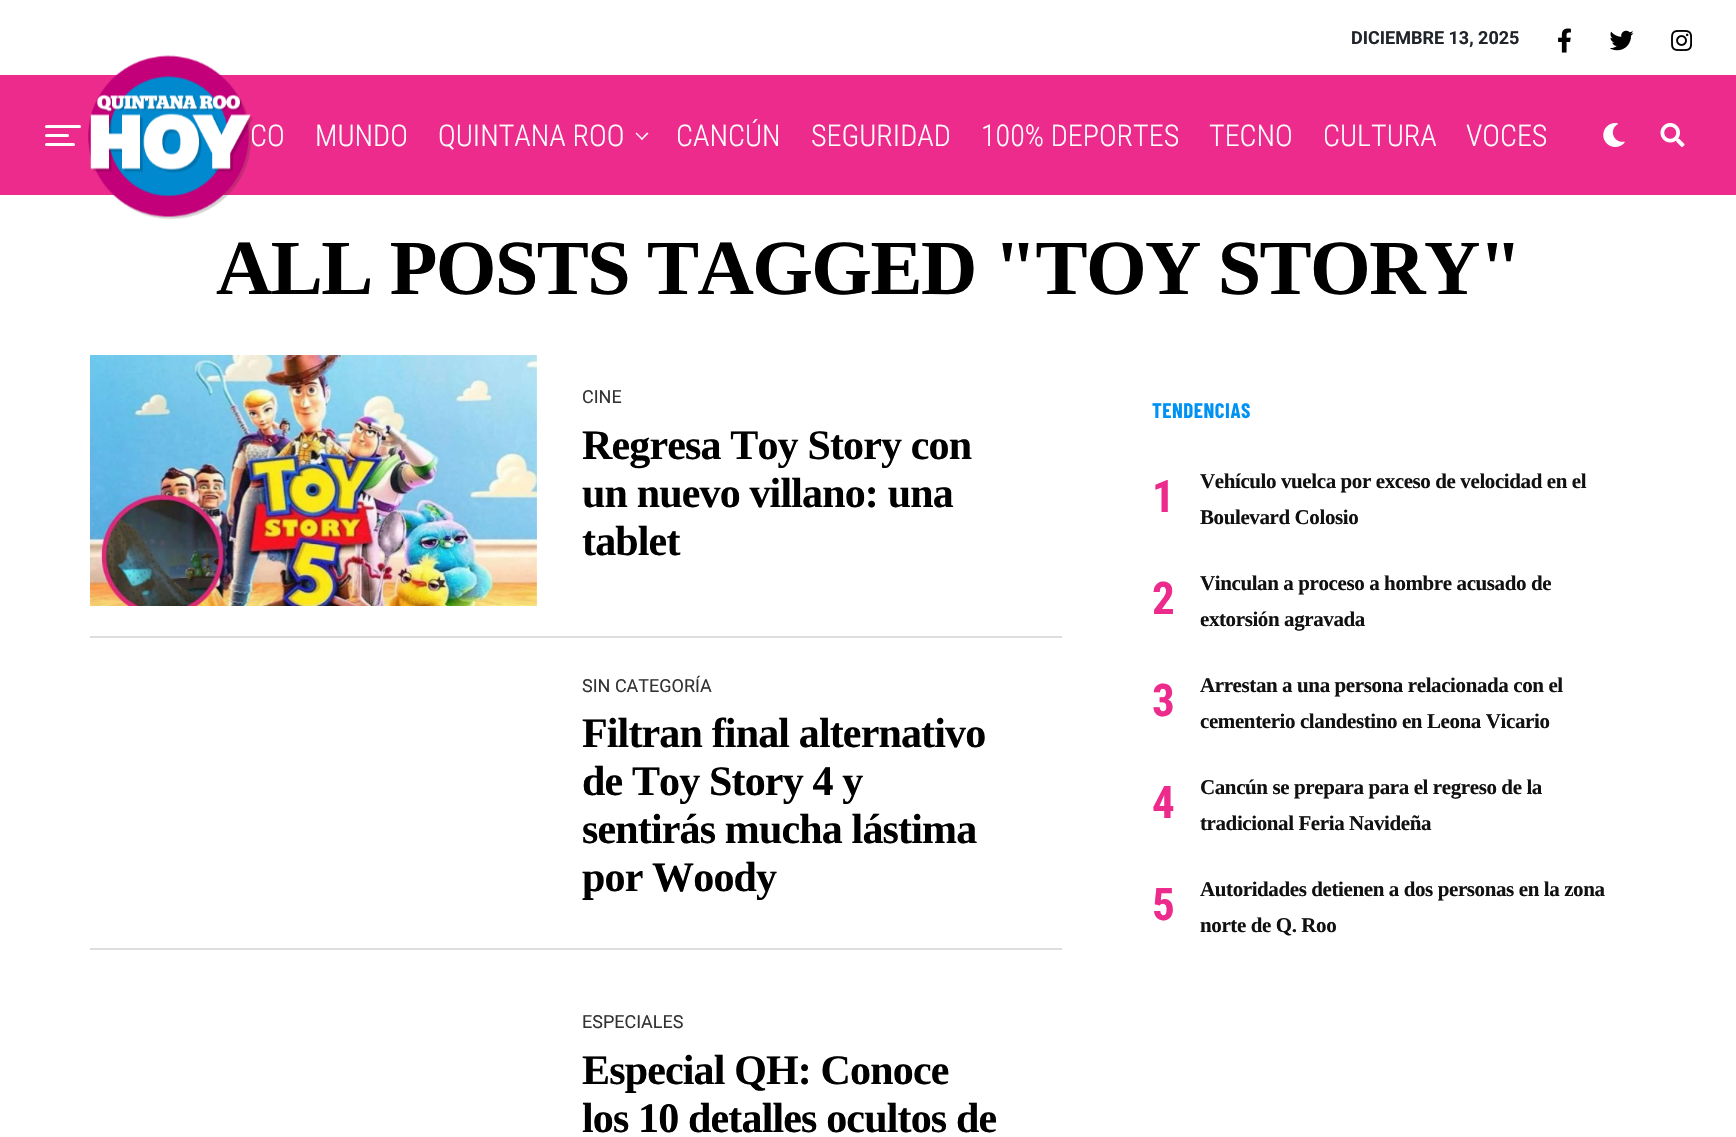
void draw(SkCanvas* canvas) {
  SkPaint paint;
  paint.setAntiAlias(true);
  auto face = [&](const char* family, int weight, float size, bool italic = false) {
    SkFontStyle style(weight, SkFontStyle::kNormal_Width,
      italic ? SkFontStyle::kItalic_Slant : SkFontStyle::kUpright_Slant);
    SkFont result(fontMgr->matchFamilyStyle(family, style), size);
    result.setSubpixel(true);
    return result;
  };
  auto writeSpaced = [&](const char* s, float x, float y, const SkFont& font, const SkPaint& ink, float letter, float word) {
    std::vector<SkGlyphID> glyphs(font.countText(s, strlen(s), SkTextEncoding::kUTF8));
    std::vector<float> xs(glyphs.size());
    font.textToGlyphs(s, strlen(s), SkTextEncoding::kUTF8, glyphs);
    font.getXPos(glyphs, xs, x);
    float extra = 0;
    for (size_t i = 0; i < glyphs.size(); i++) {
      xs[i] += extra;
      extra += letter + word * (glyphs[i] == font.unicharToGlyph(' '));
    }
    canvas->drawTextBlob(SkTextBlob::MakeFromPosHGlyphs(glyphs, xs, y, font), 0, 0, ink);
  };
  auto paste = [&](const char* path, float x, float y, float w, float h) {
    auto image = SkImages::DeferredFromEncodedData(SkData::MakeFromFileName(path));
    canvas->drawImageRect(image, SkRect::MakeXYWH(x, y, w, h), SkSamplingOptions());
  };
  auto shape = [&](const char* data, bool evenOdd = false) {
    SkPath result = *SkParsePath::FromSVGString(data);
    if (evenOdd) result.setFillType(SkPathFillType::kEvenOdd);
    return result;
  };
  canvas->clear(0xffffffff);
  paste("img/1.png", 1558, 28, 13, 25);
  paste("img/2.png", 1610, 30, 24, 21);
  paste("img/3.png", 1671, 30, 21, 21);
  paint.setColor(0xffec2b8c);
  canvas->drawRect(SkRect::MakeXYWH(0, 75, 1736, 120), paint);
  paint.setColor(0xffffffff);
  canvas->drawRoundRect(SkRect::MakeXYWH(45, 125, 36, 3), 1.5f, 1.5f, paint);
  canvas->drawRoundRect(SkRect::MakeXYWH(45, 134, 24, 3), 1.5f, 1.5f, paint);
  canvas->drawRoundRect(SkRect::MakeXYWH(45, 143, 30, 3), 1.5f, 1.5f, paint);
  canvas->drawPath(shape("M647 132.5L648.5 133.5L642 140L641 139Z"), paint);
  canvas->drawPath(shape("M636.5 132.5L643 139L642 140L635.5 133.5Z"), paint);
  paste("img/5.png", 1603, 123, 22, 24);
  paste("img/6.png", 1660, 123, 25, 24);
  paste("img/7.png", 90, 355, 447, 251);
  paint.setColor(0xffdddddd);
  canvas->drawRect(SkRect::MakeXYWH(90, 636, 972, 2), paint);
  canvas->drawRect(SkRect::MakeXYWH(90, 948, 972, 2), paint);
  auto f0 = face("Roboto", 700, 18);
  paint.setColor(0xff212529);
  canvas->drawString("DICIEMBRE 13, 2025", 1351, 44, f0, paint);
  auto f1 = face("Roboto Condensed", 300, 30);
  paint.setColor(0xffffffff);
  canvas->drawString("CO", 250, 146, f1, paint);
  paste("img/4.png", 88, 55, 165, 165);
  {
    const struct { const char* s; float x, y; } items[] = {
      {"MUNDO", 315, 146},
      {"QUINTANA ROO", 438, 146},
      {"CANCÚN", 676, 146},
      {"SEGURIDAD", 811, 146},
      {"100% DEPORTES", 981, 146},
      {"TECNO", 1209, 146},
      {"CULTURA", 1323, 146},
      {"VOCES", 1466, 146},
    };
    for (auto [s, x, y] : items) {
      canvas->drawString(s, x, y, f1, paint);
    }
  }
  auto f2 = face("Liberation Serif", 700, 78);
  paint.setColor(0xff000000);
  writeSpaced("ALL POSTS TAGGED \"TOY STORY\"", 216, 294, f2, paint, -1.55f, 0);
  auto f3 = face("Roboto", 400, 18);
  paint.setColor(0xff333333);
  canvas->drawString("CINE", 582, 403, f3, paint);
  auto f4 = face("Liberation Serif", 700, 42);
  paint.setColor(0xff000000);
  {
    const struct { const char* s; float x, y; } items[] = {
      {"Regresa Toy Story con", 582, 459},
      {"un nuevo villano: una", 582, 507},
      {"tablet", 582, 555},
    };
    for (auto [s, x, y] : items) {
      writeSpaced(s, x, y, f4, paint, -0.85f, 0);
    }
  }
  paint.setColor(0xff333333);
  canvas->drawString("SIN CATEGORÍA", 582, 692, f3, paint);
  paint.setColor(0xff000000);
  {
    const struct { const char* s; float x, y; } items[] = {
      {"Filtran final alternativo", 582, 747},
      {"de Toy Story 4 y", 582, 795},
      {"sentirás mucha lástima", 582, 843},
      {"por Woody", 582, 891},
    };
    for (auto [s, x, y] : items) {
      writeSpaced(s, x, y, f4, paint, -0.85f, 0);
    }
  }
  paint.setColor(0xff333333);
  canvas->drawString("ESPECIALES", 582, 1028, f3, paint);
  paint.setColor(0xff000000);
  writeSpaced("Especial QH: Conoce", 582, 1084, f4, paint, -0.85f, 0);
  writeSpaced("los 10 detalles ocultos de", 582, 1132, f4, paint, -0.85f, 0);
  auto f5 = face("Barlow Condensed", 700, 21);
  paint.setColor(0xff0091f5);
  writeSpaced("TENDENCIAS", 1152, 418, f5, paint, 0.5f, 0);
  auto f6 = face("Roboto Condensed", 700, 45);
  paint.setColor(0xffec2b8c);
  canvas->drawString("1", 1152, 512, f6, paint);
  auto f7 = face("Liberation Serif", 700, 21);
  paint.setColor(0xff111111);
  writeSpaced("Vehículo vuelca por exceso de velocidad en el", 1200, 488, f7, paint, -0.4f, 0);
  writeSpaced("Boulevard Colosio", 1200, 524, f7, paint, -0.4f, 0);
  paint.setColor(0xffec2b8c);
  canvas->drawString("2", 1152, 614, f6, paint);
  paint.setColor(0xff111111);
  writeSpaced("Vinculan a proceso a hombre acusado de", 1200, 590, f7, paint, -0.4f, 0);
  writeSpaced("extorsión agravada", 1200, 626, f7, paint, -0.4f, 0);
  paint.setColor(0xffec2b8c);
  canvas->drawString("3", 1152, 716, f6, paint);
  paint.setColor(0xff111111);
  writeSpaced("Arrestan a una persona relacionada con el", 1200, 692, f7, paint, -0.4f, 0);
  writeSpaced("cementerio clandestino en Leona Vicario", 1200, 728, f7, paint, -0.4f, 0);
  paint.setColor(0xffec2b8c);
  canvas->drawString("4", 1152, 818, f6, paint);
  paint.setColor(0xff111111);
  writeSpaced("Cancún se prepara para el regreso de la", 1200, 794, f7, paint, -0.4f, 0);
  writeSpaced("tradicional Feria Navideña", 1200, 830, f7, paint, -0.4f, 0);
  paint.setColor(0xffec2b8c);
  canvas->drawString("5", 1152, 920, f6, paint);
  paint.setColor(0xff111111);
  writeSpaced("Autoridades detienen a dos personas en la zona", 1200, 896, f7, paint, -0.4f, 0);
  writeSpaced("norte de Q. Roo", 1200, 932, f7, paint, -0.4f, 0);
}
